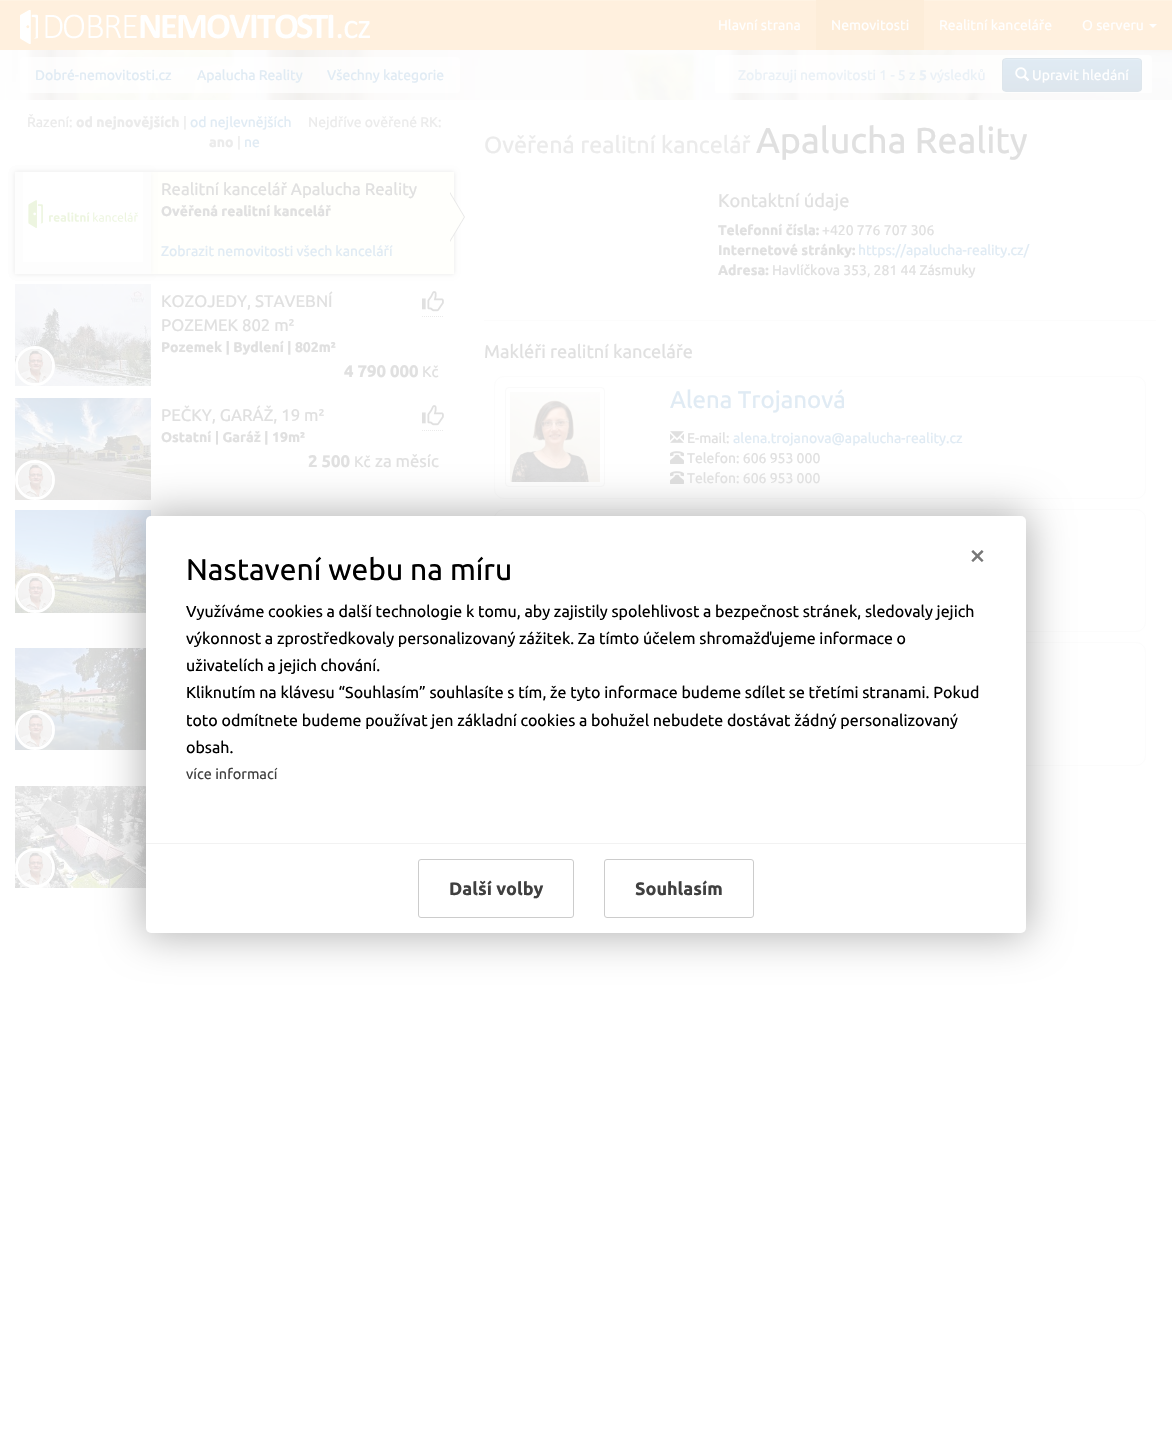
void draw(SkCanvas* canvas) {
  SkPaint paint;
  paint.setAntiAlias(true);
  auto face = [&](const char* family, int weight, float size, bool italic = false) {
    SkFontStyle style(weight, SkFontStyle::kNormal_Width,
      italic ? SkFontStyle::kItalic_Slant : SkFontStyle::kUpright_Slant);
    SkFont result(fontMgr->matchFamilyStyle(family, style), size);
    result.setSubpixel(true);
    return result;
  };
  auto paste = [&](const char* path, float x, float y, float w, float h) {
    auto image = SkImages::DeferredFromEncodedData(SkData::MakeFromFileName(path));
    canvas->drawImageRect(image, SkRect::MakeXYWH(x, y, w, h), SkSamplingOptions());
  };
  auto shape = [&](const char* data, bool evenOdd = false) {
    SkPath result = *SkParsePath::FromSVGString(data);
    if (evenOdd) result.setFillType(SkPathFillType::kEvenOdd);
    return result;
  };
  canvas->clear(0xffffffff);
  paint.setColor(0xfffff0de);
  canvas->drawRect(SkRect::MakeXYWH(0, 1, 1172, 49), paint);
  paint.setColor(0xfffff3e3);
  canvas->drawRect(SkRect::MakeXYWH(0, 0, 1172, 1), paint);
  paste("img/1.png", 20, 10, 350, 34);
  paint.setColor(0xfffdedd9);
  canvas->drawRect(SkRect::MakeXYWH(816, 0, 108, 50), paint);
  paint.setColor(0xffffffff);
  canvas->drawPath(shape("M1149 24H1157L1153 28Z"), paint);
  paste("img/2.png", 0, 50, 1172, 50);
  paint.setColor(0xb3ffffff);
  canvas->drawRoundRect(SkRect::MakeXYWH(20, 57, 440, 36), 4, 4, paint);
  canvas->save();
  canvas->clipRect(SkRect::MakeXYWH(20, 50, 1132, 43));
  canvas->drawRoundRect(SkRect::MakeXYWH(715, 55, 437, 40), 4, 4, paint);
  canvas->restore();
  canvas->save();
  canvas->clipPath(shape("M1006 58H1138C1140 58 1142 60 1142 62V88C1142 90 1140 92 1138 92H1006C1004 92 1002 90 1002 88V62C1002 60 1004 58 1006 58Z"), true);
  {
    const SkColor colors[] = {0xffe0ebf4, 0xffdee6ed};
    const float stops[] = {0, 1};
    const SkPoint ends[] = {{1072, 59}, {1072, 91}};
    paint.setShader(SkGradientShader::MakeLinear(ends, colors, stops, 2, SkTileMode::kClamp));
    paint.setAlpha(255);
  }
  canvas->drawRect(SkRect::MakeXYWH(1002, 59, 140, 32), paint);
  canvas->restore();
  paint.setShader(nullptr);
  paint.setColor(0xffe5eef6);
  canvas->drawPath(shape("M1006 60H1138C1140 60 1141 61 1141 63C1141 61 1141 59 1139 59H1005C1003 59 1003 61 1003 63C1003 61 1004 60 1006 60Z"), paint);
  paint.setStroke(true);
  paint.setStrokeWidth(1);
  paint.setColor(0xffdee6ec);
  canvas->drawRoundRect(SkRect::MakeXYWH(1002.5f, 58.5f, 139, 33), 3.5f, 3.5f, paint);
  paste("img/3.png", 1015, 67, 15, 15);
  paint.setStroke(false);
  paint.setColor(0xffe8e8e8);
  paint.setMaskFilter(SkMaskFilter::MakeBlur(kNormal_SkBlurStyle, 2.5f));
  canvas->drawRect(SkRect::MakeXYWH(15, 172, 439, 102), paint);
  paint.setMaskFilter(nullptr);
  paint.setColor(0xfffffffc);
  canvas->drawRect(SkRect::MakeXYWH(151, 172, 303, 102), paint);
  paint.setColor(0xfff7f7f7);
  paint.setMaskFilter(SkMaskFilter::MakeBlur(kNormal_SkBlurStyle, 2.5f));
  canvas->drawRect(SkRect::MakeXYWH(15, 172, 136, 102), paint);
  paint.setMaskFilter(nullptr);
  paint.setColor(0xfffdfdfd);
  canvas->drawRect(SkRect::MakeXYWH(15, 172, 136, 102), paint);
  paste("img/4.png", 23, 172, 120, 90);
  paint.setColor(0xffe8e8e8);
  canvas->drawPath(shape("M450 242V192L465 217Z"), paint);
  paint.setColor(0xfffffffc);
  canvas->drawPath(shape("M449 242V192L464 217Z"), paint);
  paste("img/5.png", 15, 284, 136, 102);
  paint.setStroke(true);
  paint.setStrokeWidth(3);
  paint.setColor(0xffffffff);
  canvas->drawCircle(35, 366, 18.5f, paint);
  paste("img/6.png", 18, 349, 34, 34);
  paint.setStrokeWidth(1);
  paint.setColor(0xffebebeb);
  paint.setPathEffect(SkDashPathEffect::Make({{1, 1}}, 0));
  canvas->drawPath(shape("M422 316.5H444"), paint);
  paint.setPathEffect(nullptr);
  paste("img/7.png", 422, 291, 22, 21);
  paste("img/8.png", 15, 398, 136, 102);
  paint.setStrokeWidth(3);
  paint.setColor(0xffffffff);
  canvas->drawCircle(35, 480, 18.5f, paint);
  paste("img/9.png", 18, 463, 34, 34);
  paint.setStrokeWidth(1);
  paint.setColor(0xffebebeb);
  paint.setPathEffect(SkDashPathEffect::Make({{1, 1}}, 0));
  canvas->drawPath(shape("M422 430.5H444"), paint);
  paint.setPathEffect(nullptr);
  paste("img/7.png", 422, 405, 22, 21);
  paste("img/10.png", 15, 510, 136, 103);
  paint.setStrokeWidth(3);
  paint.setColor(0xffffffff);
  canvas->drawCircle(35, 593, 18.5f, paint);
  paste("img/11.png", 18, 576, 34, 34);
  paste("img/12.png", 15, 648, 131, 102);
  canvas->drawCircle(35, 730, 18.5f, paint);
  paste("img/13.png", 18, 713, 34, 34);
  paste("img/14.png", 15, 786, 131, 102);
  canvas->drawCircle(35, 868, 18.5f, paint);
  paste("img/15.png", 18, 851, 34, 34);
  paint.setStroke(false);
  paint.setColor(0xfffcfcfc);
  canvas->drawRect(SkRect::MakeXYWH(484, 320, 672, 1), paint);
  paint.setStroke(true);
  paint.setStrokeWidth(1);
  canvas->drawRoundRect(SkRect::MakeXYWH(494.5f, 376.5f, 651, 122), 9.5f, 9.5f, paint);
  paint.setColor(0xfffafafa);
  canvas->drawRoundRect(SkRect::MakeXYWH(505.5f, 387.5f, 99, 99), 3.5f, 3.5f, paint);
  paste("img/16.png", 510, 392, 90, 90);
  paste("img/17.png", 670, 431, 14, 12);
  paste("img/18.png", 670, 451, 14, 13);
  paste("img/18.png", 670, 471, 14, 13);
  paint.setColor(0xfffcfcfc);
  canvas->drawRoundRect(SkRect::MakeXYWH(494.5f, 509.5f, 651, 122), 9.5f, 9.5f, paint);
  canvas->drawRoundRect(SkRect::MakeXYWH(494.5f, 642.5f, 651, 123), 9.5f, 9.5f, paint);
  paint.setStroke(false);
  paint.setColor(0x4d000000);
  paint.setMaskFilter(SkMaskFilter::MakeBlur(kNormal_SkBlurStyle, 20));
  canvas->drawRoundRect(SkRect::MakeXYWH(143, 513, 886, 423), 8, 8, paint);
  paint.setMaskFilter(nullptr);
  paint.setColor(0xffffffff);
  canvas->drawRoundRect(SkRect::MakeXYWH(146, 516, 880, 417), 5, 5, paint);
  paint.setColor(0xfff2f2f2);
  canvas->drawRect(SkRect::MakeXYWH(146, 843, 880, 1), paint);
  paint.setStroke(true);
  paint.setColor(0xffcccccc);
  canvas->drawRoundRect(SkRect::MakeXYWH(418.5f, 859.5f, 155, 58), 2.5f, 2.5f, paint);
  canvas->drawRoundRect(SkRect::MakeXYWH(604.5f, 859.5f, 149, 58), 2.5f, 2.5f, paint);
  auto f0 = face("Ubuntu", 400, 14);
  paint.setStroke(false);
  paint.setColor(0xffffffff);
  {
    const struct { const char* s; float x, y; } items[] = {
      {"Hlavní strana", 718, 30},
      {"Nemovitosti", 831, 30},
      {"Realitní kanceláře", 939, 30},
      {"O serveru", 1082, 30},
    };
    for (auto [s, x, y] : items) {
      canvas->drawString(s, x, y, f0, paint);
    }
  }
  paint.setColor(0xffe0ebf4);
  {
    const struct { const char* s; float x, y; } items[] = {
      {"Dobré-nemovitosti.cz", 35, 80},
      {"Apalucha Reality", 197, 80},
      {"Všechny kategorie", 327, 80},
    };
    for (auto [s, x, y] : items) {
      canvas->drawString(s, x, y, f0, paint);
    }
  }
  paint.setColor(0xffeaf1f7);
  {
    const struct { const char* s; float x, y; } items[] = {
      {"Zobrazuji", 738, 80},
      {"nemovitosti 1 - 5", 800, 80},
      {"z", 909, 80},
    };
    for (auto [s, x, y] : items) {
      canvas->drawString(s, x, y, f0, paint);
    }
  }
  auto f1 = face("Ubuntu", 700, 14);
  canvas->drawString("5", 919, 80, f1, paint);
  canvas->drawString("výsledků", 930, 80, f0, paint);
  paint.setColor(0xffffffff);
  canvas->drawString("Upravit hledání", 1032, 80, f0, paint);
  paint.setColor(0xffebebeb);
  canvas->drawString("Řazení:", 27, 127, f0, paint);
  canvas->drawString("od nejnovějších", 76, 127, f1, paint);
  canvas->drawString("|", 183, 127, f0, paint);
  paint.setColor(0xffe0ebf4);
  canvas->drawString("od nejlevnějších", 190, 127, f0, paint);
  paint.setColor(0xffebebeb);
  canvas->drawString("Nejdříve ověřené RK:", 308, 127, f0, paint);
  canvas->drawString("ano", 209, 147, f1, paint);
  canvas->drawString("|", 237, 147, f0, paint);
  paint.setColor(0xffe0ebf4);
  canvas->drawString("ne", 244, 147, f0, paint);
  auto f2 = face("Ubuntu", 400, 16.75f);
  paint.setColor(0xffe0e0e0);
  canvas->drawString("Realitní kancelář Apalucha Reality", 161, 195, f2, paint);
  canvas->drawString("Ověřená realitní kancelář", 161, 216, f1, paint);
  paint.setColor(0xffe0ebf4);
  canvas->drawString("Zobrazit nemovitosti všech kanceláří", 161, 256, f0, paint);
  paint.setColor(0xffe0e0e0);
  canvas->drawString("KOZOJEDY, STAVEBNÍ", 161, 307, f2, paint);
  canvas->drawString("POZEMEK 802 m²", 161, 331, f2, paint);
  canvas->drawString("Pozemek | Bydlení | 802m²", 161, 352, f1, paint);
  auto f3 = face("Ubuntu", 700, 16.75f);
  canvas->drawString("4 790 000", 344, 377, f3, paint);
  auto f4 = face("Ubuntu", 400, 15);
  canvas->drawString("Kč", 422, 377, f4, paint);
  canvas->drawString("PEČKY, GARÁŽ, 19 m²", 161, 421, f2, paint);
  canvas->drawString("Ostatní | Garáž | 19m²", 161, 442, f1, paint);
  canvas->drawString("2 500", 308, 467, f3, paint);
  canvas->drawString("Kč", 354, 467, f4, paint);
  canvas->drawString("za měsíc", 375, 467, f2, paint);
  auto f5 = face("Ubuntu", 400, 23.4f);
  paint.setColor(0xffebebeb);
  canvas->drawString("Ověřená realitní kancelář", 484, 153, f5, paint);
  auto f6 = face("Ubuntu", 400, 36);
  paint.setColor(0xffe0e0e0);
  canvas->drawString("Apalucha Reality", 756, 153, f6, paint);
  auto f7 = face("Ubuntu", 400, 18.25f);
  canvas->drawString("Kontaktní údaje", 718, 207, f7, paint);
  canvas->drawString("Telefonní čísla:", 718, 235, f1, paint);
  canvas->drawString("+420 776 707 306", 822, 235, f0, paint);
  canvas->drawString("Internetové stránky:", 718, 255, f1, paint);
  paint.setColor(0xffe0ebf4);
  canvas->drawString("https://apalucha-reality.cz/", 858, 255, f0, paint);
  paint.setColor(0xffe0e0e0);
  canvas->drawString("Adresa:", 718, 275, f1, paint);
  canvas->drawString("Havlíčkova 353, 281 44 Zásmuky", 772, 275, f0, paint);
  canvas->drawString("Makléři realitní kanceláře", 484, 358, f7, paint);
  auto f8 = face("Ubuntu", 400, 24);
  paint.setColor(0xffe0ebf4);
  canvas->drawString("Alena Trojanová", 670, 408, f8, paint);
  paint.setColor(0xffe0e0e0);
  canvas->drawString("E-mail:", 687, 443, f0, paint);
  paint.setColor(0xffe0ebf4);
  canvas->drawString("alena.trojanova@apalucha-reality.cz", 733, 443, f0, paint);
  paint.setColor(0xffe0e0e0);
  canvas->drawString("Telefon: 606 953 000", 687, 463, f0, paint);
  canvas->drawString("Telefon: 606 953 000", 687, 483, f0, paint);
  auto f9 = face("Ubuntu", 400, 30);
  paint.setColor(0xff000000);
  canvas->drawString("Nastavení webu na míru", 186, 580, f9, paint);
  paint.setColor(0xff777777);
  canvas->drawString("×", 969, 565, f9, paint);
  auto f10 = face("Ubuntu", 400, 16);
  paint.setColor(0xff000000);
  {
    const struct { const char* s; float x, y; } items[] = {
      {"Využíváme cookies a další technologie k tomu, aby zajistily spolehlivost a bezpečnost stránek, sledovaly jejich", 186, 617},
      {"výkonnost a zprostředkovaly personalizovaný zážitek. Za tímto účelem shromažďujeme informace o", 186, 644},
      {"uživatelích a jejich chování.", 186, 671},
      {"Kliknutím na klávesu “Souhlasím” souhlasíte s tím, že tyto informace budeme sdílet se třetími stranami. Pokud", 186, 698},
      {"toto odmítnete budeme používat jen základní cookies a bohužel nebudete dostávat žádný personalizovaný", 186, 726},
      {"obsah.", 186, 753},
    };
    for (auto [s, x, y] : items) {
      canvas->drawString(s, x, y, f10, paint);
    }
  }
  auto f11 = face("Ubuntu", 400, 14.5f);
  paint.setColor(0xff404040);
  canvas->drawString("více informací", 186, 779, f11, paint);
  auto f12 = face("Ubuntu", 700, 18);
  canvas->drawString("Další volby", 449, 895, f12, paint);
  canvas->drawString("Souhlasím", 635, 895, f12, paint);
}
